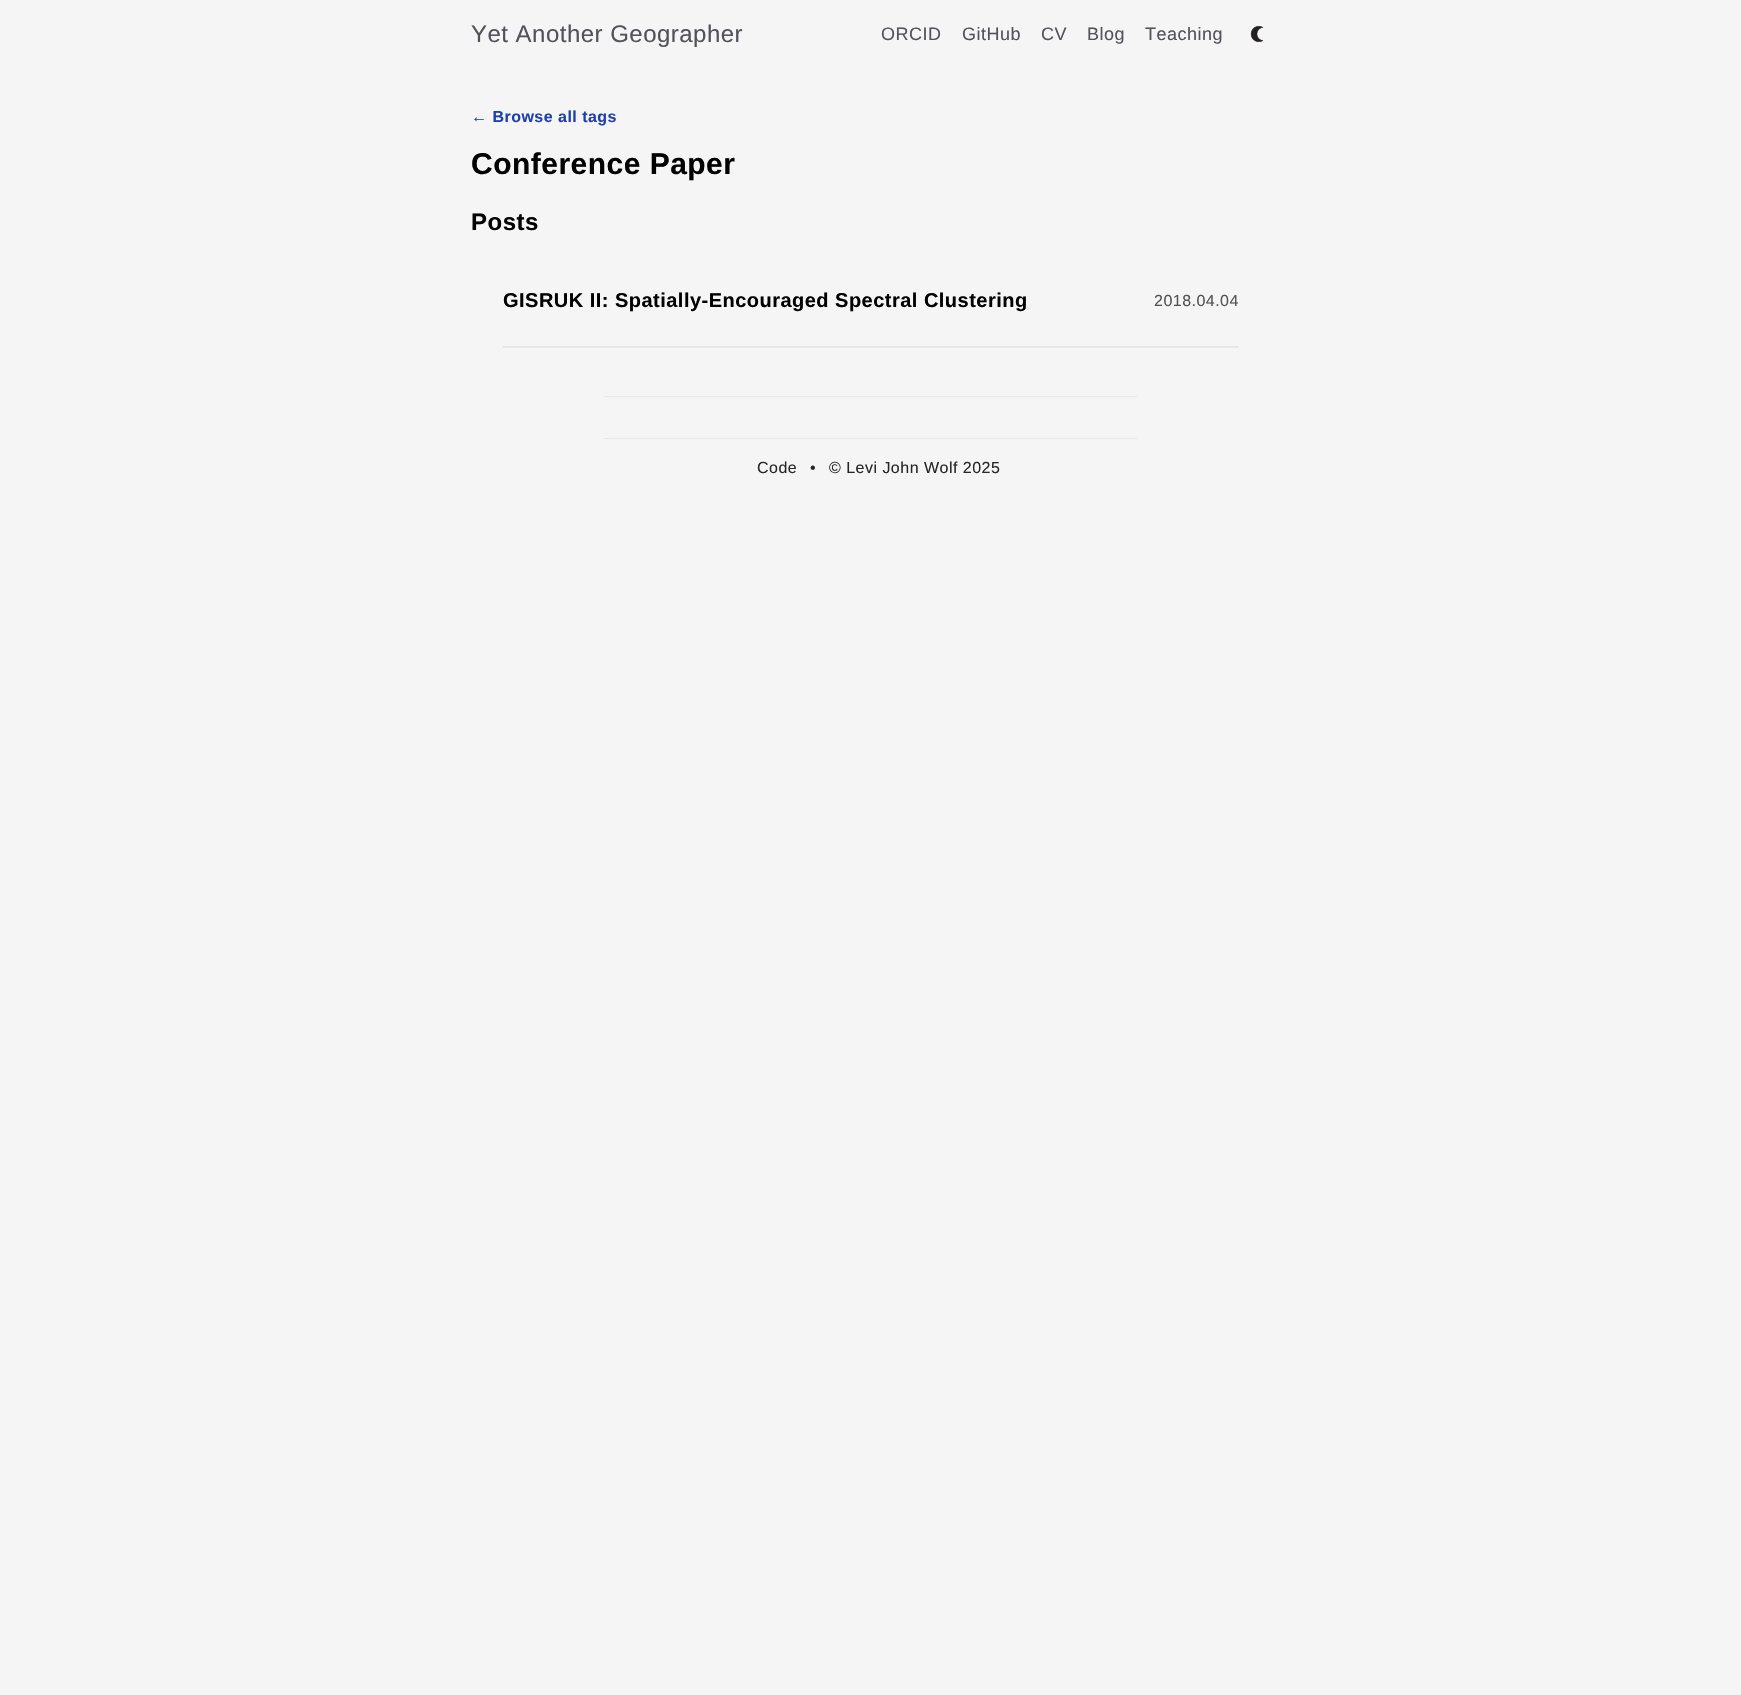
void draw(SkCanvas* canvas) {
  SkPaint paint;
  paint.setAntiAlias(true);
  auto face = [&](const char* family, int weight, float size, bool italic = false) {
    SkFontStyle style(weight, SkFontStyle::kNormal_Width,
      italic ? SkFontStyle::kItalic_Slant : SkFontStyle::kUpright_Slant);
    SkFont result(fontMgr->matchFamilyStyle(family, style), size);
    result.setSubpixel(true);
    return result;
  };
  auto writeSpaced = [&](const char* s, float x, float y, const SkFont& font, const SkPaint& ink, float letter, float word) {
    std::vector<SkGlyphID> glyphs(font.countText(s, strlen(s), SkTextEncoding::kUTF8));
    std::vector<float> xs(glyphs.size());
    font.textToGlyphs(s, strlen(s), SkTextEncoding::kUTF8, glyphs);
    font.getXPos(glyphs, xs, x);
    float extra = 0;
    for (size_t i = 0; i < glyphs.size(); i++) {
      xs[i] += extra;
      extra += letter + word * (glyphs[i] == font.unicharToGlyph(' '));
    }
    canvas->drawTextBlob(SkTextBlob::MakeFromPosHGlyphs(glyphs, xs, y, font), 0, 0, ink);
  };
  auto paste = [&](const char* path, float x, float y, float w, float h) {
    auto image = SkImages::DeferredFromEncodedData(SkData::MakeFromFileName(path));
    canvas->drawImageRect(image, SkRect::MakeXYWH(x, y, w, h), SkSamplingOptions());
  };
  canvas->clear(0xfff5f5f5);
  paste("img/1.png", 1250, 26, 14, 16);
  {
    const struct { float x, y, w, h; SkColor color; } items[] = {
      {503, 346, 736, 2, 0xffe5e7eb},
      {604, 396, 533, 1, 0xffe5e7eb},
      {604, 438, 533, 1, 0xffe5e7eb},
    };
    for (auto [x, y, w, h, color] : items) {
      paint.setColor(color);
      canvas->drawRect(SkRect::MakeXYWH(x, y, w, h), paint);
    }
  }
  auto f0 = face("Liberation Sans", 400, 24);
  paint.setColor(0xff52525b);
  writeSpaced("Yet Another Geographer", 471, 42, f0, paint, 0.48f, 0);
  auto f1 = face("Liberation Sans", 400, 18);
  {
    const struct { const char* s; float x, y; } items[] = {
      {"ORCID", 881, 40},
      {"GitHub", 962, 40},
      {"CV", 1041, 40},
      {"Blog", 1087, 40},
      {"Teaching", 1145, 40},
    };
    for (auto [s, x, y] : items) {
      writeSpaced(s, x, y, f1, paint, 0.48f, 0);
    }
  }
  auto f2 = face("Liberation Sans", 700, 16);
  paint.setColor(0xff1e40af);
  writeSpaced("← Browse all tags", 471, 122, f2, paint, 0.48f, 0);
  auto f3 = face("Liberation Sans", 700, 30);
  paint.setColor(0xff000000);
  writeSpaced("Conference Paper", 471, 174, f3, paint, 0.48f, 0);
  auto f4 = face("Liberation Sans", 700, 24);
  writeSpaced("Posts", 471, 230, f4, paint, 0.48f, 0);
  auto f5 = face("Liberation Sans", 700, 20);
  writeSpaced("GISRUK II: Spatially-Encouraged Spectral Clustering", 503, 307, f5, paint, 0.48f, 0);
  auto f6 = face("Liberation Sans", 400, 16);
  paint.setColor(0xff525252);
  writeSpaced("2018.04.04", 1154, 306, f6, paint, 0.48f, 0);
  paint.setColor(0xff262626);
  {
    const struct { const char* s; float x, y; } items[] = {
      {"Code", 757, 473},
      {"•", 810, 473},
      {"© Levi John Wolf 2025", 829, 473},
    };
    for (auto [s, x, y] : items) {
      writeSpaced(s, x, y, f6, paint, 0.48f, 0);
    }
  }
}
